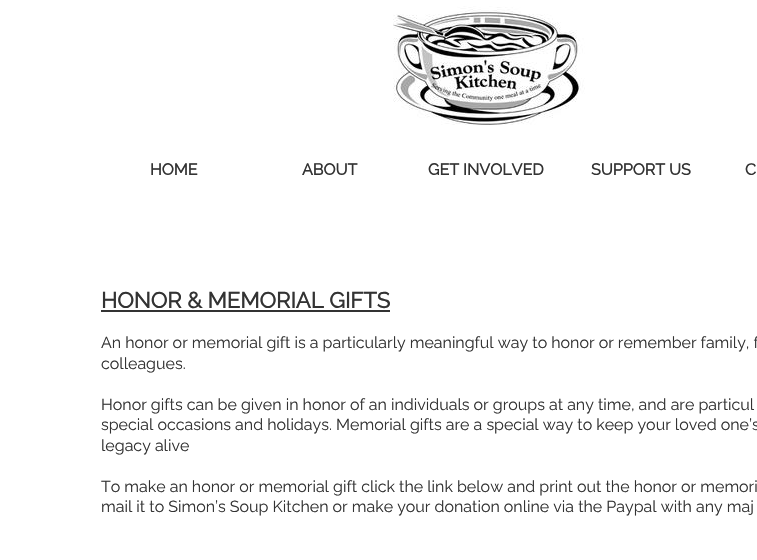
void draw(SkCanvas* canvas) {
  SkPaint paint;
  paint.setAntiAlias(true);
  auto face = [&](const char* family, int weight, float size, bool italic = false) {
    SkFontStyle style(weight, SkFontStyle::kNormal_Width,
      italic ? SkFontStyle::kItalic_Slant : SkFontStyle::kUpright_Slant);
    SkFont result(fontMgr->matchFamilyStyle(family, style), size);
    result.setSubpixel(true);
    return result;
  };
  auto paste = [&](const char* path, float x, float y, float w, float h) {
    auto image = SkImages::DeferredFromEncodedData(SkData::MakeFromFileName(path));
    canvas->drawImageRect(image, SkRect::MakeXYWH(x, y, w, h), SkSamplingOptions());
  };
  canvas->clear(0xffffffff);
  paste("img/1.png", 393, 6, 192, 119);
  paint.setColor(0xff333333);
  canvas->drawRect(SkRect::MakeXYWH(101, 310, 289, 2), paint);
  auto f0 = face("Raleway", 700, 16);
  {
    const struct { const char* s; float x, y; } items[] = {
      {"HOME", 150, 175},
      {"ABOUT", 302, 175},
      {"GET INVOLVED", 428, 175},
      {"SUPPORT US", 591, 175},
      {"C", 745, 175},
    };
    for (auto [s, x, y] : items) {
      canvas->drawString(s, x, y, f0, paint);
    }
  }
  auto f1 = face("Raleway", 700, 22);
  canvas->drawString("HONOR & MEMORIAL GIFTS", 101, 308, f1, paint);
  auto f2 = face("Raleway", 100, 16);
  {
    const struct { const char* s; float x, y; } items[] = {
      {"An honor or memorial gift is a particularly meaningful way to honor or remember family, f", 101, 348},
      {"colleagues.", 101, 369},
      {"Honor gifts can be given in honor of an individuals or groups at any time, and are particul", 101, 410},
      {"special occasions and holidays. Memorial gifts are a special way to keep your loved one’s", 101, 430},
      {"legacy alive", 101, 451},
      {"To make an honor or memorial gift click the link below and print out the honor or memori", 101, 492},
      {"mail it to Simon’s Soup Kitchen or make your donation online via the Paypal with any maj", 101, 512},
    };
    for (auto [s, x, y] : items) {
      canvas->drawString(s, x, y, f2, paint);
    }
  }
}
